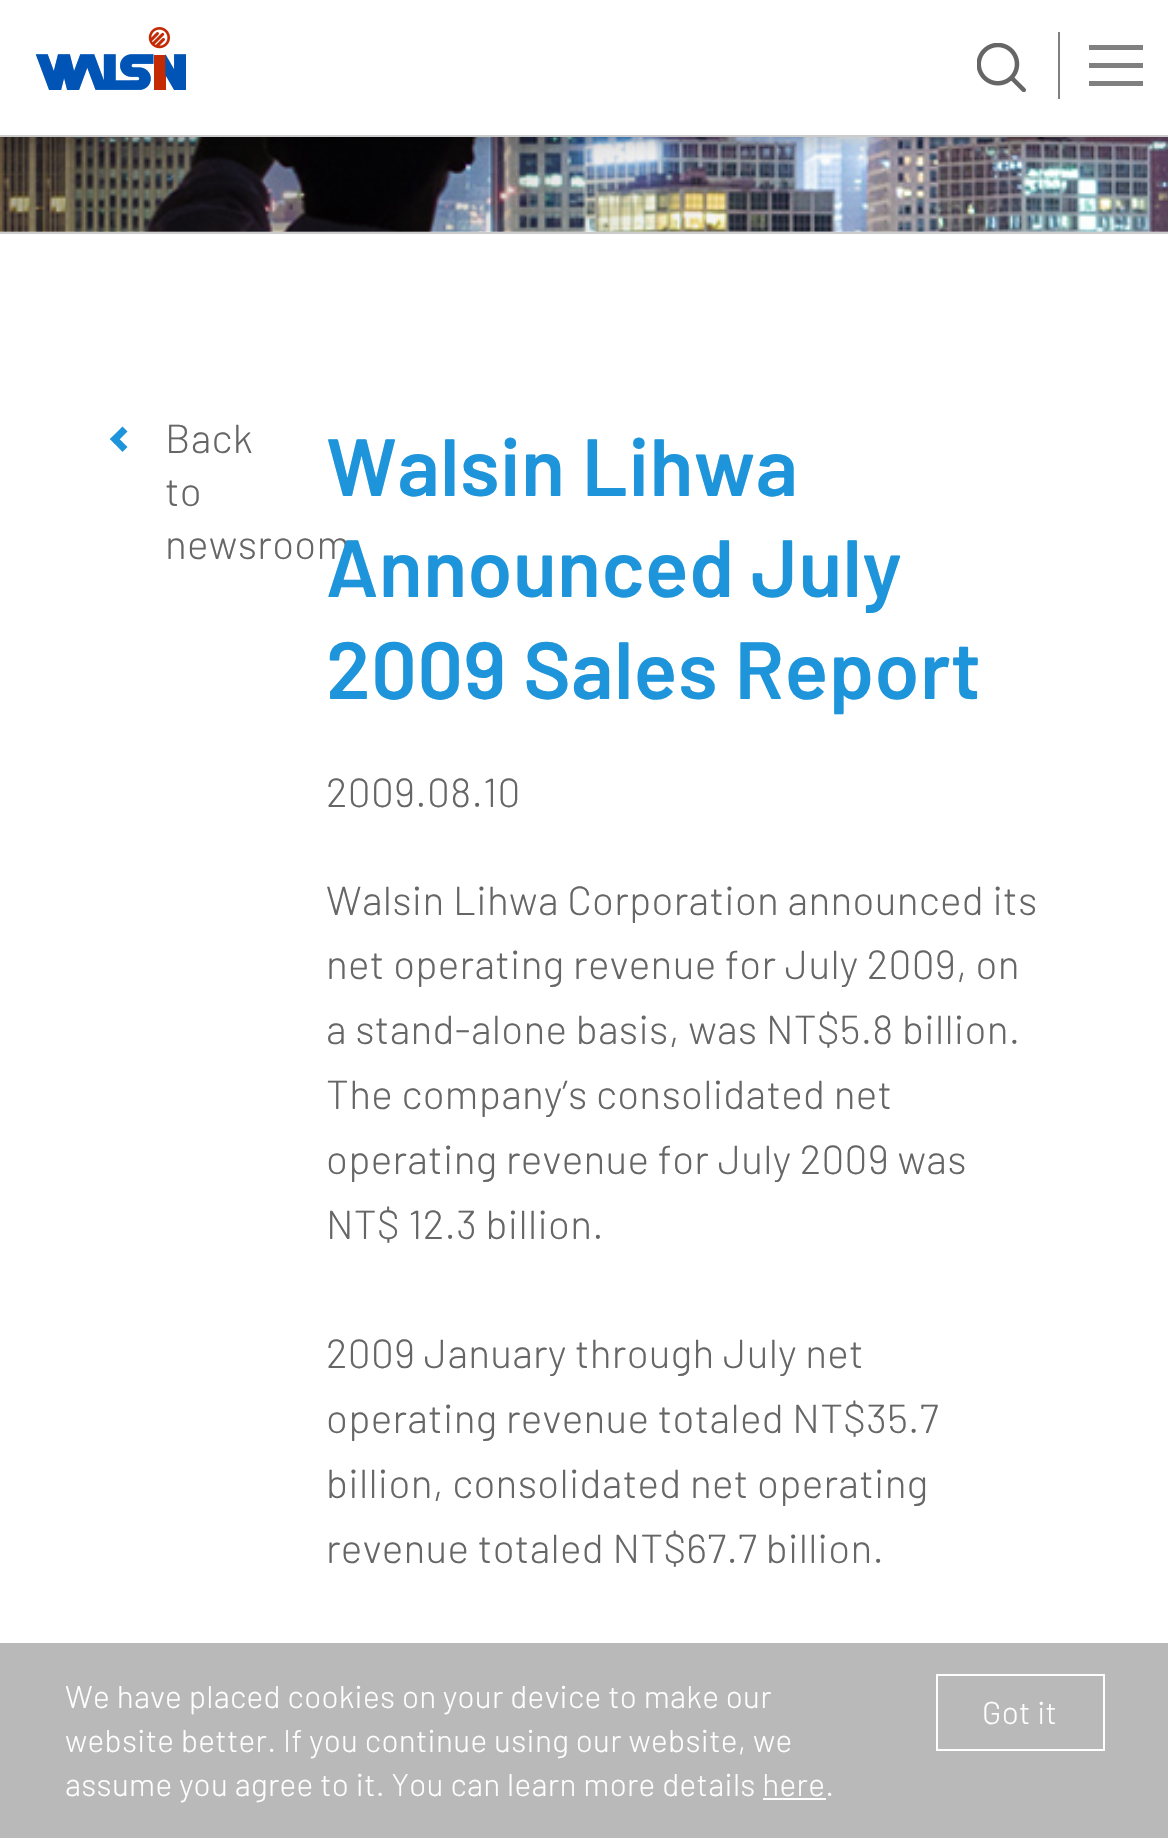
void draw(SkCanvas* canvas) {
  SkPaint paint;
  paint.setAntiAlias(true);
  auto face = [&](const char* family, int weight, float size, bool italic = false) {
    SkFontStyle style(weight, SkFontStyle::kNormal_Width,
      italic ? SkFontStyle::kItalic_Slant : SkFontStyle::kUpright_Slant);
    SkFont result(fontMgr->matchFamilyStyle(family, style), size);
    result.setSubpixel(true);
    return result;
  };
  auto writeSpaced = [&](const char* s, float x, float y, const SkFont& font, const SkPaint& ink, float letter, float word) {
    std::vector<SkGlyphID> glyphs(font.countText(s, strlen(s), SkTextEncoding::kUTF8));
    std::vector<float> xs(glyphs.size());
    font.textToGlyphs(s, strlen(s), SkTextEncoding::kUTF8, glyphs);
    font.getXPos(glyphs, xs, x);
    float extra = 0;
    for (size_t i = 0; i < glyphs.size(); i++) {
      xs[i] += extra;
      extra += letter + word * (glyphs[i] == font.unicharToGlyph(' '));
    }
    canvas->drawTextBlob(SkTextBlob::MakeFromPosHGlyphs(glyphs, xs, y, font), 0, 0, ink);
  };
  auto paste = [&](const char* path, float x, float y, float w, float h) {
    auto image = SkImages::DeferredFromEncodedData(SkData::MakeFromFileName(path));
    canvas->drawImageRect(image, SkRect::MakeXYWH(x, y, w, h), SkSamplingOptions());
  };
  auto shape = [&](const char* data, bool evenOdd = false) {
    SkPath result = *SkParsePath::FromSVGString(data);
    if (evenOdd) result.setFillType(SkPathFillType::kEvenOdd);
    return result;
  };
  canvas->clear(0xffffffff);
  paste("img/3.png", 0, 137, 1168, 95);
  paint.setColor(0x4d000000);
  paint.setMaskFilter(SkMaskFilter::MakeBlur(kNormal_SkBlurStyle, 11));
  canvas->drawRect(SkRect::MakeXYWH(0, 0, 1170, 137), paint);
  paint.setMaskFilter(nullptr);
  paint.setColor(0xffffffff);
  canvas->drawRect(SkRect::MakeXYWH(0, 0, 1168, 135), paint);
  paint.setColor(0xffcccccc);
  canvas->drawRect(SkRect::MakeXYWH(0, 135, 1168, 2), paint);
  paste("img/1.png", 35, 27, 151, 63);
  paste("img/2.png", 977, 43, 49, 49);
  {
    const struct { float x, y, w, h; SkColor color; } items[] = {
      {1058, 32, 2, 67, 0xff808080},
      {1089, 63, 54, 5, 0xff808080},
      {1089, 45, 54, 5, 0xff808080},
      {1089, 81, 54, 5, 0xff808080},
      {0, 232, 1168, 2, 0xffcccccc},
    };
    for (auto [x, y, w, h, color] : items) {
      paint.setColor(color);
      canvas->drawRect(SkRect::MakeXYWH(x, y, w, h), paint);
    }
  }
  paint.setColor(0xff1e95db);
  canvas->drawPath(shape("M122.5 452L110 439L115 434.5L127.5 447Z"), paint);
  canvas->drawPath(shape("M115 444L110 439L122.5 426.5L127.5 431.5Z"), paint);
  paint.setColor(0xffb9b9b9);
  canvas->drawRect(SkRect::MakeXYWH(0, 1643, 1168, 195), paint);
  paint.setStroke(true);
  paint.setStrokeWidth(2);
  paint.setColor(0xffffffff);
  canvas->drawRect(SkRect::MakeXYWH(937, 1675, 167, 75), paint);
  paint.setStroke(false);
  canvas->drawRect(SkRect::MakeXYWH(763, 1798, 63, 2), paint);
  auto f0 = face("Barlow", 300, 40.5f);
  paint.setColor(0xff666666);
  {
    const struct { const char* s; float x, y; } items[] = {
      {"Back", 165, 453},
      {"to", 165, 506},
      {"newsroom", 165, 559},
    };
    for (auto [s, x, y] : items) {
      writeSpaced(s, x, y, f0, paint, 0.32f, 0);
    }
  }
  auto f1 = face("Barlow", 600, 81);
  paint.setColor(0xff1e95db);
  {
    const struct { const char* s; float x, y; } items[] = {
      {"Walsin Lihwa", 326, 496},
      {"Announced July", 326, 597},
      {"2009 Sales Report", 326, 699},
    };
    for (auto [s, x, y] : items) {
      writeSpaced(s, x, y, f1, paint, 0.32f, 0);
    }
  }
  paint.setColor(0xff666666);
  {
    const struct { const char* s; float x, y; } items[] = {
      {"2009.08.10", 326, 807},
      {"Walsin Lihwa Corporation announced its", 326, 915},
      {"net operating revenue for July 2009, on", 326, 979},
      {"a stand-alone basis, was NT$5.8 billion.", 326, 1044},
      {"The company’s consolidated net", 326, 1109},
      {"operating revenue for July 2009 was", 326, 1174},
      {"NT$ 12.3 billion.", 326, 1239},
      {"2009 January through July net", 326, 1368},
      {"operating revenue totaled NT$35.7", 326, 1433},
      {"billion, consolidated net operating", 326, 1498},
      {"revenue totaled NT$67.7 billion.", 326, 1563},
    };
    for (auto [s, x, y] : items) {
      writeSpaced(s, x, y, f0, paint, 0.32f, 0);
    }
  }
  auto f2 = face("Barlow", 300, 31.5f);
  paint.setColor(0xffffffff);
  {
    const struct { const char* s; float x, y; } items[] = {
      {"We have placed cookies on your device to make our", 65, 1708},
      {"Got it", 982, 1724},
      {"website better. If you continue using our website, we", 65, 1752},
      {"assume you agree to it. You can learn more details here.", 65, 1796},
    };
    for (auto [s, x, y] : items) {
      writeSpaced(s, x, y, f2, paint, 0.32f, 0);
    }
  }
}
